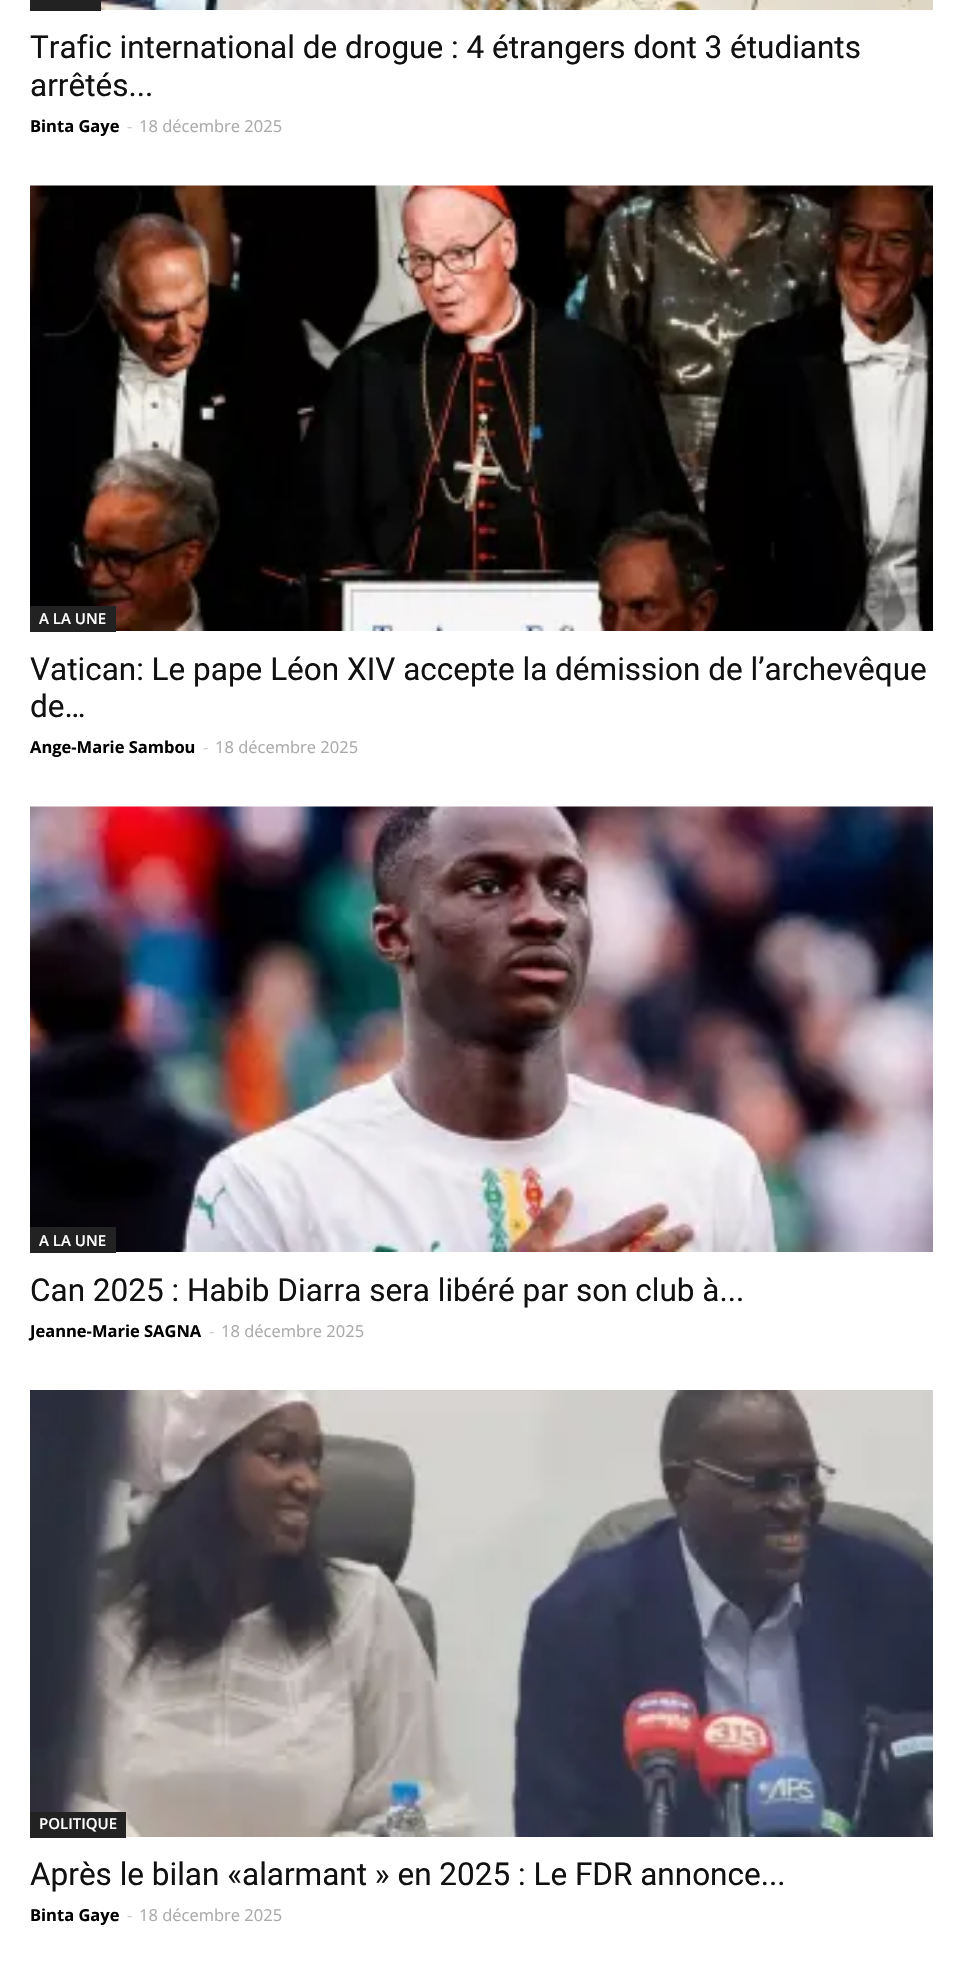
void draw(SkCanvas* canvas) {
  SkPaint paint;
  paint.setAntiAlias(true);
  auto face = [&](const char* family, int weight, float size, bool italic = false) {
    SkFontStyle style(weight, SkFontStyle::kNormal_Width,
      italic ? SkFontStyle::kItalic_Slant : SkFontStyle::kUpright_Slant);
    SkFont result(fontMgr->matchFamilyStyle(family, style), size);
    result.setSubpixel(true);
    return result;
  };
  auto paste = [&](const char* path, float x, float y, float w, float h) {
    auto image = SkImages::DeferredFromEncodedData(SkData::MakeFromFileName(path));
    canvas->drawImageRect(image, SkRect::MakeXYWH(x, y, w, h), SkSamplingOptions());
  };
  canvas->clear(0xffffffff);
  paint.setColor(0xff222222);
  canvas->drawRect(SkRect::MakeXYWH(30, 0, 71, 11), paint);
  paste("img/1.png", 101, 0, 832, 10);
  paste("img/2.png", 30, 185, 903, 446);
  canvas->drawRect(SkRect::MakeXYWH(30, 606, 86, 26), paint);
  paste("img/3.png", 30, 806, 903, 446);
  canvas->drawRect(SkRect::MakeXYWH(30, 1227, 86, 26), paint);
  paste("img/4.png", 30, 1390, 903, 447);
  canvas->drawRect(SkRect::MakeXYWH(30, 1812, 96, 26), paint);
  auto f0 = face("Roboto", 400, 31.5f);
  paint.setColor(0xff111111);
  canvas->drawString("Trafic international de drogue : 4 étrangers dont 3 étudiants", 30, 58, f0, paint);
  canvas->drawString("arrêtés...", 30, 96, f0, paint);
  auto f1 = face("Open Sans", 700, 16.5f);
  paint.setColor(0xff000000);
  canvas->drawString("Binta Gaye", 30, 132, f1, paint);
  auto f2 = face("Open Sans", 400, 16.5f);
  paint.setColor(0xffcccccc);
  canvas->drawString("-", 127, 132, f2, paint);
  paint.setColor(0xffaaaaaa);
  canvas->drawString("18 décembre 2025", 139, 132, f2, paint);
  auto f3 = face("Open Sans", 600, 15);
  paint.setColor(0xffffffff);
  canvas->drawString("A LA UNE", 39, 624, f3, paint);
  paint.setColor(0xff111111);
  canvas->drawString("Vatican: Le pape Léon XIV accepte la démission de l’archevêque", 30, 680, f0, paint);
  canvas->drawString("de…", 30, 717, f0, paint);
  paint.setColor(0xff000000);
  canvas->drawString("Ange-Marie Sambou", 30, 753, f1, paint);
  paint.setColor(0xffcccccc);
  canvas->drawString("-", 203, 753, f2, paint);
  paint.setColor(0xffaaaaaa);
  canvas->drawString("18 décembre 2025", 215, 753, f2, paint);
  paint.setColor(0xffffffff);
  canvas->drawString("A LA UNE", 39, 1246, f3, paint);
  paint.setColor(0xff111111);
  canvas->drawString("Can 2025 : Habib Diarra sera libéré par son club à...", 30, 1301, f0, paint);
  paint.setColor(0xff000000);
  canvas->drawString("Jeanne-Marie SAGNA", 30, 1337, f1, paint);
  paint.setColor(0xffcccccc);
  canvas->drawString("-", 209, 1337, f2, paint);
  paint.setColor(0xffaaaaaa);
  canvas->drawString("18 décembre 2025", 221, 1337, f2, paint);
  paint.setColor(0xffffffff);
  canvas->drawString("POLITIQUE", 39, 1829, f3, paint);
  paint.setColor(0xff111111);
  canvas->drawString("Après le bilan «alarmant » en 2025 : Le FDR annonce...", 30, 1885, f0, paint);
  paint.setColor(0xff000000);
  canvas->drawString("Binta Gaye", 30, 1921, f1, paint);
  paint.setColor(0xffcccccc);
  canvas->drawString("-", 127, 1921, f2, paint);
  paint.setColor(0xffaaaaaa);
  canvas->drawString("18 décembre 2025", 139, 1921, f2, paint);
}
